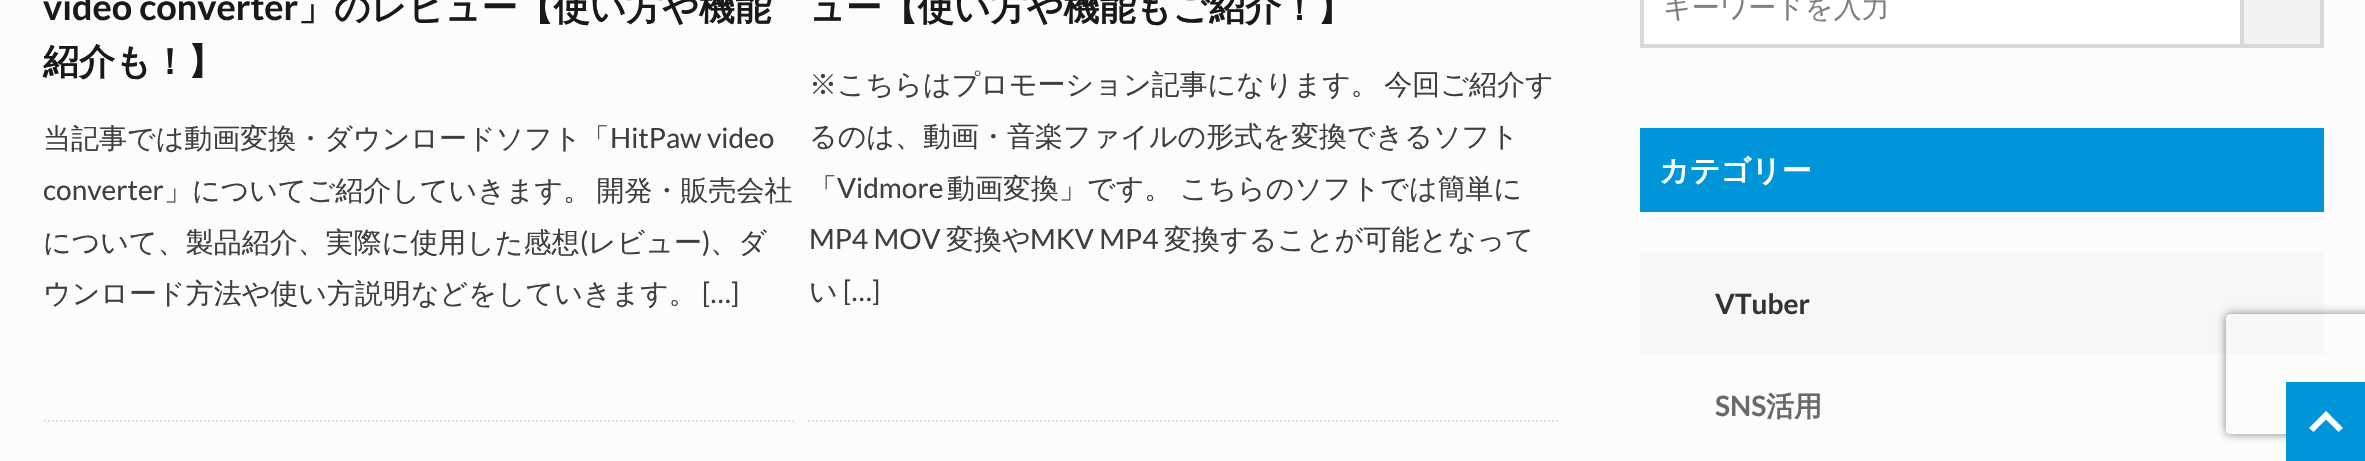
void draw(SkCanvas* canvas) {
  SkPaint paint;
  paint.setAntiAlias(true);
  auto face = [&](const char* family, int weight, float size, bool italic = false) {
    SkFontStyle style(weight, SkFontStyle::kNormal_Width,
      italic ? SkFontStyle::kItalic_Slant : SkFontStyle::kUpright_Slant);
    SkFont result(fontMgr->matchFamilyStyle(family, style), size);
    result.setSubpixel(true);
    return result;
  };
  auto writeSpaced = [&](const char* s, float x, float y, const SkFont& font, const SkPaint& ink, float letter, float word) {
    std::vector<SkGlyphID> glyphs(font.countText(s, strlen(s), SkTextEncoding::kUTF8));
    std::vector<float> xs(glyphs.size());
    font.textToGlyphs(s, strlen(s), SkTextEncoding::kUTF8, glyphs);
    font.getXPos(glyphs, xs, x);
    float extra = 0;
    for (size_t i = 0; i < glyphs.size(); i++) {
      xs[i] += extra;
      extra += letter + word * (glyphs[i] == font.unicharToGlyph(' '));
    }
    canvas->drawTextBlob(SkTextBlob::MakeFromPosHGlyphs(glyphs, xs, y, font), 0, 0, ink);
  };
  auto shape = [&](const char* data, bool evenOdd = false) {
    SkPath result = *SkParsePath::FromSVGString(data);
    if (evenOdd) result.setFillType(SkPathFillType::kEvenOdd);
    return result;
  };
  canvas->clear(0xfffcfcfc);
  paint.setStroke(true);
  paint.setStrokeWidth(2);
  paint.setColor(0xffe3e3e3);
  paint.setPathEffect(SkDashPathEffect::Make({{2, 2}}, 0));
  canvas->drawPath(shape("M44 421H794"), paint);
  paint.setPathEffect(nullptr);
  paint.setPathEffect(SkDashPathEffect::Make({{2, 2}}, 0));
  canvas->drawPath(shape("M808 421H1560"), paint);
  paint.setPathEffect(nullptr);
  paint.setStroke(false);
  paint.setColor(0xffffffff);
  canvas->drawRect(SkRect::MakeXYWH(1642, -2, 600, 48), paint);
  paint.setStroke(true);
  paint.setStrokeWidth(4);
  paint.setColor(0xffd8d8d8);
  canvas->drawRect(SkRect::MakeXYWH(1642, -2, 600, 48), paint);
  paint.setStroke(false);
  {
    const struct { float x, y, w, h; SkColor color; } items[] = {
      {2244, 0, 76, 44, 0xfff2f2f2},
      {2320, 0, 4, 48, 0xffd8d8d8},
      {2244, 44, 80, 4, 0xffd8d8d8},
      {1640, 128, 684, 84, 0xff0095d9},
      {1640, 252, 684, 102, 0xfff7f7f7},
    };
    for (auto [x, y, w, h, color] : items) {
      paint.setColor(color);
      canvas->drawRect(SkRect::MakeXYWH(x, y, w, h), paint);
    }
  }
  canvas->save();
  canvas->clipPath(shape("M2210 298H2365V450H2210ZM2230 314H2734C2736 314 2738 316 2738 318V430C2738 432 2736 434 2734 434H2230C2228 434 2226 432 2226 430V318C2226 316 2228 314 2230 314Z", true), true);
  paint.setColor(0xff808080);
  paint.setMaskFilter(SkMaskFilter::MakeBlur(kNormal_SkBlurStyle, 5));
  canvas->drawRoundRect(SkRect::MakeXYWH(2226, 314, 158, 120), 4, 4, paint);
  paint.setMaskFilter(nullptr);
  canvas->restore();
  paint.setColor(0xff0095d9);
  canvas->drawRect(SkRect::MakeXYWH(2286, 382, 79, 79), paint);
  paint.setColor(0xffffffff);
  canvas->drawPath(shape("M2309 428L2326 411L2330 415.5L2313.5 432Z"), paint);
  canvas->drawPath(shape("M2322 415.5L2326 411L2343 428L2338.5 432Z"), paint);
  auto f0 = face("Lato", 700, 36);
  paint.setColor(0xff191919);
  canvas->drawString("video converter", 43, 20, f0, paint);
  auto f1 = face("WenQuanYi Zen Hei", 700, 36);
  canvas->drawString("」のレビュー【使い方や機能", 298, 20, f1, paint);
  canvas->drawString("紹介も！】", 43, 74, f1, paint);
  auto f2 = face("WenQuanYi Zen Hei", 500, 28);
  paint.setColor(0xff3f3f3f);
  canvas->drawString("当記事では動画変換・ダウンロードソフト「", 43, 148, f2, paint);
  auto f3 = face("Lato", 400, 28);
  canvas->drawString("HitPaw video", 610, 148, f3, paint);
  canvas->drawString("converter", 43, 200, f3, paint);
  writeSpaced("」についてご紹介していきます。 開発・販売会社", 164, 200, f2, paint, 0, -3);
  canvas->drawString("について、製品紹介、実際に使用した感想 レビュー 、ダ", 43, 252, f2, paint);
  canvas->drawString("(", 580, 252, f3, paint);
  canvas->drawString(")", 702, 252, f3, paint);
  canvas->drawString("ウンロード方法や使い方説明などをしていきます。", 43, 303, f2, paint);
  canvas->drawString("[…]", 702, 303, f3, paint);
  paint.setColor(0xff191919);
  canvas->drawString("ュー【使い方や機能もご紹介！】", 809, 20, f1, paint);
  paint.setColor(0xff3f3f3f);
  writeSpaced("※こちらはプロモーション記事になります。 今回ご紹介す", 809, 94, f2, paint, 0, -3);
  canvas->drawString("るのは、動画・音楽ファイルの形式を変換できるソフト", 809, 146, f2, paint);
  canvas->drawString("「", 809, 198, f2, paint);
  canvas->drawString("Vidmore", 837, 198, f3, paint);
  writeSpaced("動画変換」です。 こちらのソフトでは簡単に", 947, 198, f2, paint, 0, -1);
  canvas->drawString("MP4 MOV", 809, 249, f3, paint);
  canvas->drawString("変換や", 946, 249, f2, paint);
  canvas->drawString("MKV MP4", 1030, 249, f3, paint);
  canvas->drawString("変換することが可能となって", 1164, 249, f2, paint);
  canvas->drawString("い", 809, 301, f2, paint);
  canvas->drawString("[…]", 843, 301, f3, paint);
  paint.setColor(0xff7f7f7f);
  canvas->drawString("キーワードを入力", 1663, 17, f2, paint);
  auto f4 = face("WenQuanYi Zen Hei", 700, 30);
  paint.setColor(0xffffffff);
  canvas->drawString("カテゴリー", 1659, 181, f4, paint);
  auto f5 = face("Lato", 700, 28);
  paint.setColor(0xff333333);
  canvas->drawString("VTuber", 1715, 314, f5, paint);
  paint.setColor(0xff696969);
  canvas->drawString("SNS", 1715, 416, f5, paint);
  auto f6 = face("WenQuanYi Zen Hei", 700, 28);
  canvas->drawString("活用", 1766, 416, f6, paint);
}
